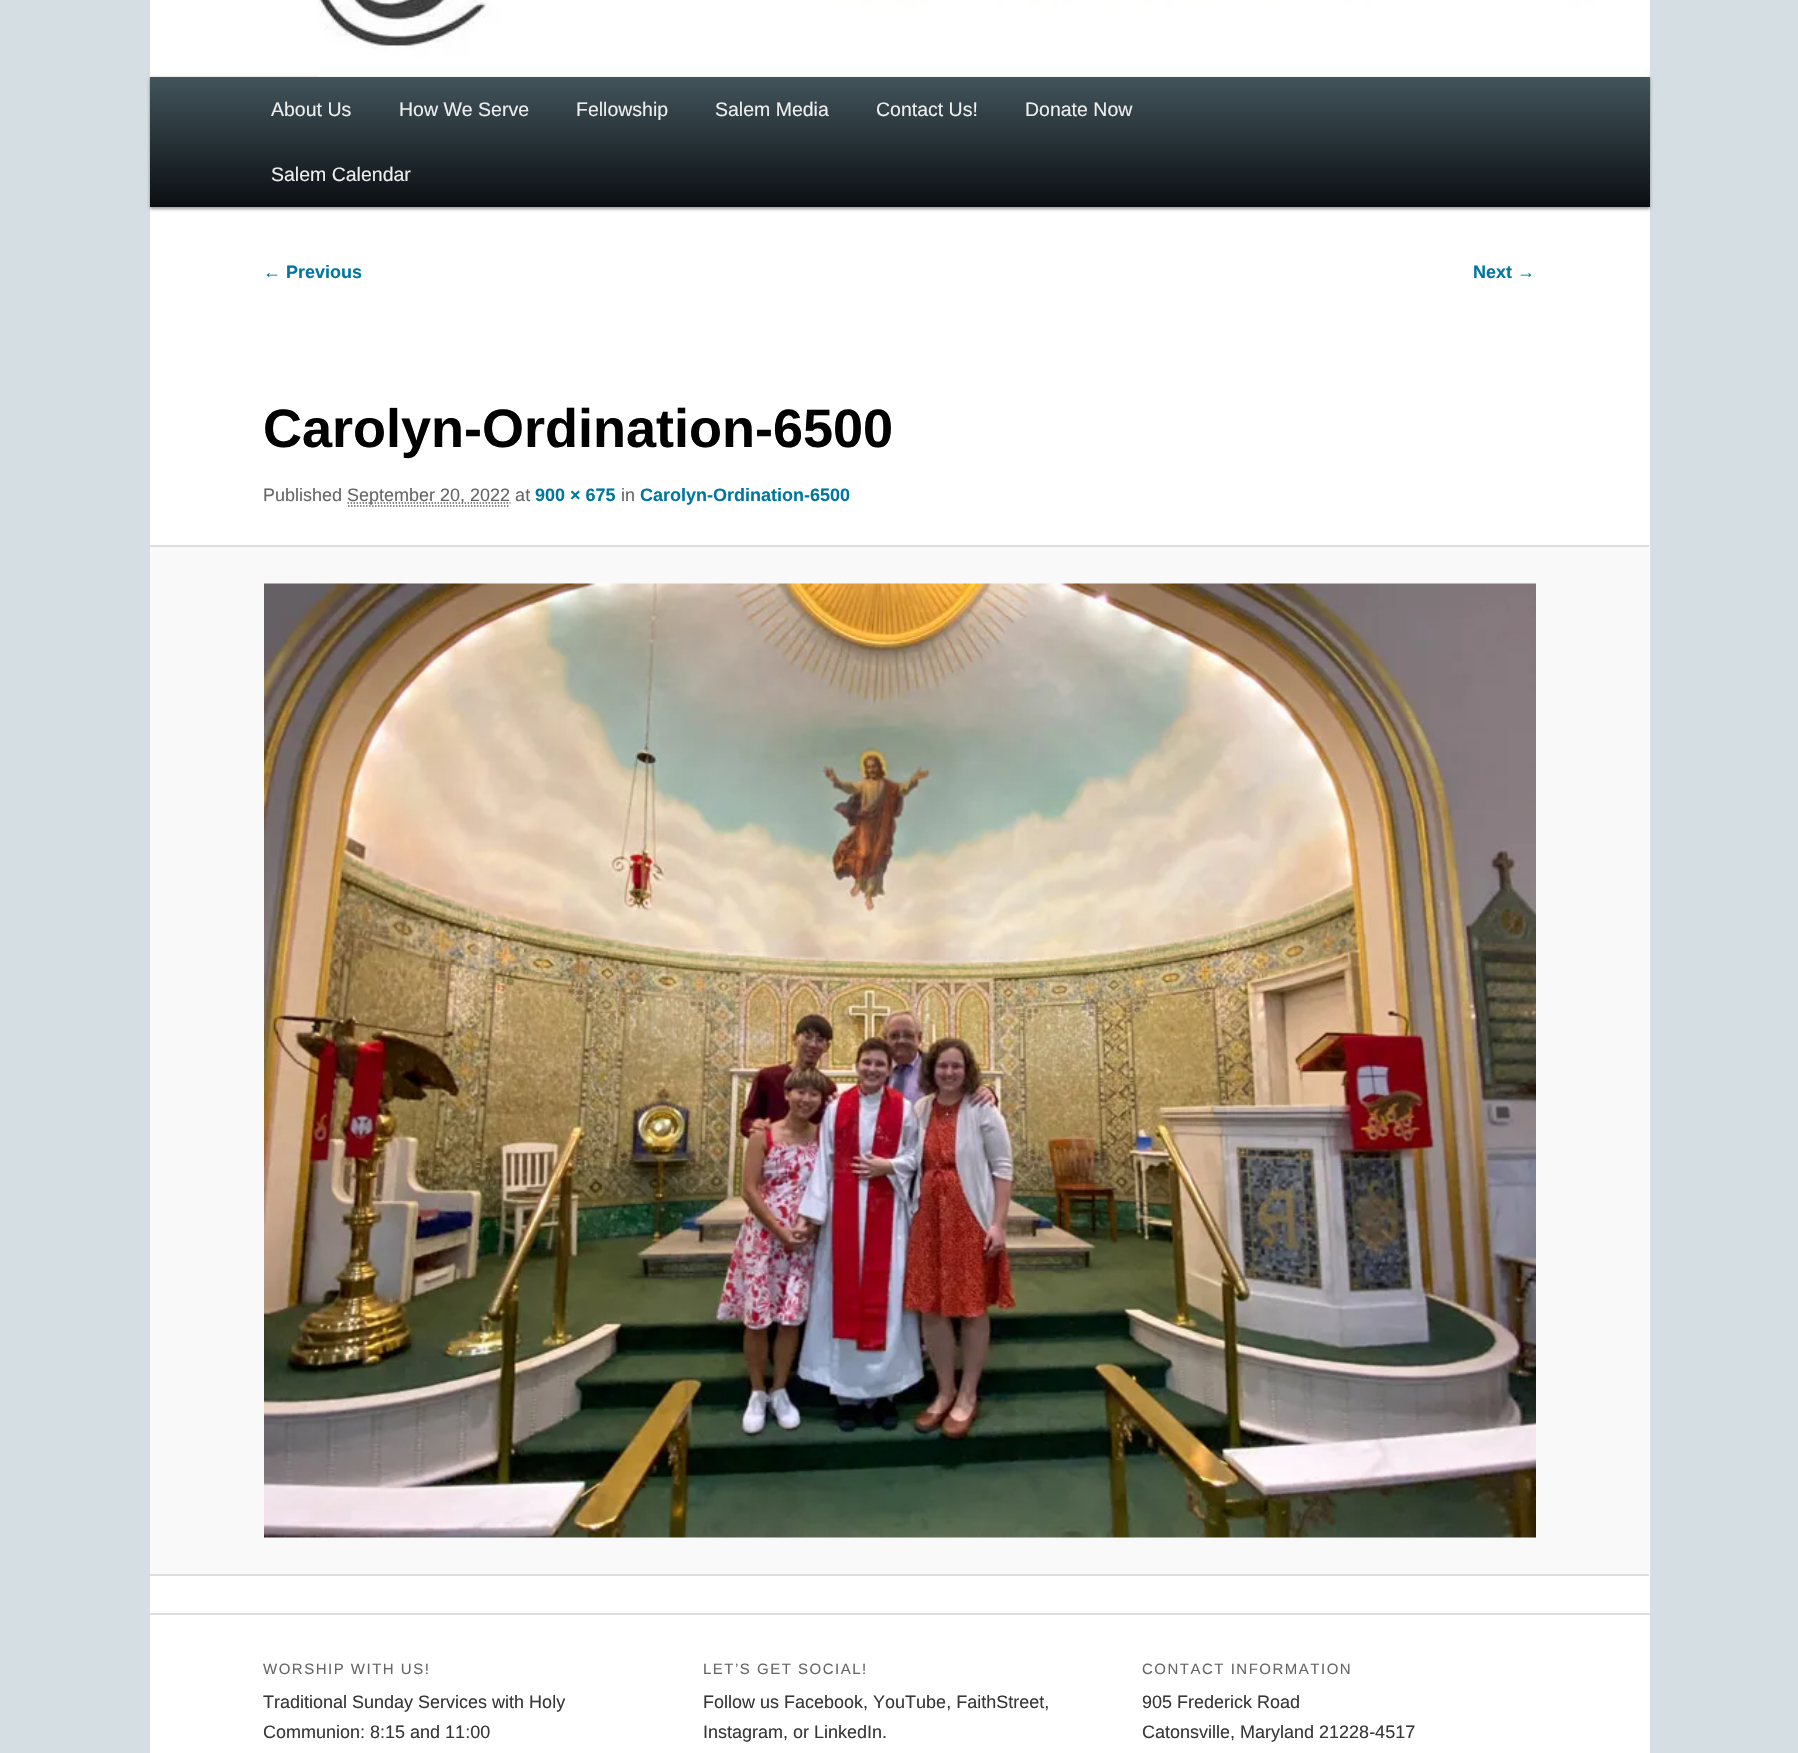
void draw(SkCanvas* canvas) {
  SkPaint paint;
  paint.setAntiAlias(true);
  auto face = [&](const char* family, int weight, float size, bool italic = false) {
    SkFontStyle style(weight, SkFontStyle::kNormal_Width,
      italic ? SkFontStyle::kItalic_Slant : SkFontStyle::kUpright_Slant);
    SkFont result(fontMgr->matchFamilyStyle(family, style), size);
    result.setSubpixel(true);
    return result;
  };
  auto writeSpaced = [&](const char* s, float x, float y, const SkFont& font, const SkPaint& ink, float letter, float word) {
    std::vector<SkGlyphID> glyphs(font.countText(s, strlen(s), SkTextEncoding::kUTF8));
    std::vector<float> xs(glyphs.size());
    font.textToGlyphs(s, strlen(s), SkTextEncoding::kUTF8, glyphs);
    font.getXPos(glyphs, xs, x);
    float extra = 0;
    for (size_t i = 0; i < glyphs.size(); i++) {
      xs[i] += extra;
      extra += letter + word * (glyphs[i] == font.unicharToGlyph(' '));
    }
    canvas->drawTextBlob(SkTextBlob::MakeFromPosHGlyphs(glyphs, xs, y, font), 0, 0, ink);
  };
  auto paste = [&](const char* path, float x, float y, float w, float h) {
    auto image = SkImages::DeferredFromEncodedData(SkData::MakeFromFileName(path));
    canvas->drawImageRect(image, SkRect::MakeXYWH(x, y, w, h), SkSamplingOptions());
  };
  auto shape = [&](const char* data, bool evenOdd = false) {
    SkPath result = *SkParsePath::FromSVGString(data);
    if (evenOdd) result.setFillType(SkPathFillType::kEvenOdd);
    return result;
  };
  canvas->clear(0xffd5dee3);
  paint.setColor(0xffffffff);
  canvas->drawRect(SkRect::MakeXYWH(150, 0, 1500, 1753), paint);
  paint.setColor(0x66000000);
  paint.setMaskFilter(SkMaskFilter::MakeBlur(kNormal_SkBlurStyle, 1.5f));
  canvas->drawRect(SkRect::MakeXYWH(150, 78, 1500, 131), paint);
  paint.setMaskFilter(nullptr);
  paste("img/1.png", 318, 0, 1332, 77);
  {
    const SkColor colors[] = {0xff43555c, 0xff0a0e12};
    const float stops[] = {0, 1};
    const SkPoint ends[] = {{900, 76}, {900, 207}};
    paint.setShader(SkGradientShader::MakeLinear(ends, colors, stops, 2, SkTileMode::kClamp));
    paint.setAlpha(255);
  }
  canvas->drawRect(SkRect::MakeXYWH(150, 77, 1500, 130), paint);
  paint.setStroke(true);
  paint.setStrokeWidth(1.5f);
  paint.setShader(nullptr);
  paint.setColor(0xff666666);
  paint.setPathEffect(SkDashPathEffect::Make({{1.5f, 1.5f}}, 0));
  canvas->drawPath(shape("M348 506H510"), paint);
  paint.setPathEffect(nullptr);
  paint.setPathEffect(SkDashPathEffect::Make({{1.5f, 1.5f}}, 0));
  canvas->drawPath(shape("M347.5 503H510.5"), paint);
  paint.setPathEffect(nullptr);
  paint.setStroke(false);
  {
    const struct { float x, y, w, h; SkColor color; } items[] = {
      {150, 547, 1499, 1027, 0xfff9f9f9},
      {150, 545, 1499, 2, 0xffdddddd},
      {150, 1574, 1499, 2, 0xffdddddd},
    };
    for (auto [x, y, w, h, color] : items) {
      paint.setColor(color);
      canvas->drawRect(SkRect::MakeXYWH(x, y, w, h), paint);
    }
  }
  paste("img/2.png", 264, 583, 1272, 955);
  canvas->drawRect(SkRect::MakeXYWH(150, 1613, 1500, 2), paint);
  auto f0 = face("Liberation Sans", 400, 19.5f);
  paint.setColor(0xffeeeeee);
  {
    const struct { const char* s; float x, y; } items[] = {
      {"About Us", 271, 116},
      {"How We Serve", 399, 116},
      {"Fellowship", 576, 116},
      {"Salem Media", 715, 116},
      {"Contact Us!", 876, 116},
      {"Donate Now", 1025, 116},
      {"Salem Calendar", 271, 181},
    };
    for (auto [s, x, y] : items) {
      canvas->drawString(s, x, y, f0, paint);
    }
  }
  auto f1 = face("Liberation Sans", 700, 18);
  paint.setColor(0xff0176a0);
  canvas->drawString("← Previous", 263, 278, f1, paint);
  canvas->drawString("Next →", 1473, 278, f1, paint);
  auto f2 = face("Liberation Sans", 700, 54);
  paint.setColor(0xff000000);
  canvas->drawString("Carolyn-Ordination-6500", 263, 447, f2, paint);
  auto f3 = face("Liberation Sans", 400, 18);
  paint.setColor(0xff666666);
  canvas->drawString("Published", 263, 501, f3, paint);
  canvas->drawString("September 20, 2022 at", 347, 501, f3, paint);
  paint.setColor(0xff0176a0);
  canvas->drawString("900 × 675", 535, 501, f1, paint);
  paint.setColor(0xff666666);
  canvas->drawString("in", 621, 501, f3, paint);
  paint.setColor(0xff0176a0);
  canvas->drawString("Carolyn-Ordination-6500", 640, 501, f1, paint);
  auto f4 = face("Liberation Sans", 400, 15);
  paint.setColor(0xff666666);
  writeSpaced("WORSHIP WITH US!", 263, 1674, f4, paint, 1.5f, 0);
  paint.setColor(0xff373737);
  canvas->drawString("Traditional Sunday Services with Holy", 263, 1708, f3, paint);
  canvas->drawString("Communion: 8:15 and 11:00", 263, 1738, f3, paint);
  paint.setColor(0xff666666);
  writeSpaced("LET’S GET SOCIAL!", 703, 1674, f4, paint, 1.5f, 0);
  paint.setColor(0xff373737);
  canvas->drawString("Follow us Facebook, YouTube, FaithStreet,", 703, 1708, f3, paint);
  canvas->drawString("Instagram, or LinkedIn.", 703, 1738, f3, paint);
  paint.setColor(0xff666666);
  writeSpaced("CONTACT INFORMATION", 1142, 1674, f4, paint, 1.5f, 0);
  paint.setColor(0xff373737);
  canvas->drawString("905 Frederick Road", 1142, 1708, f3, paint);
  canvas->drawString("Catonsville, Maryland 21228-4517", 1142, 1738, f3, paint);
}
